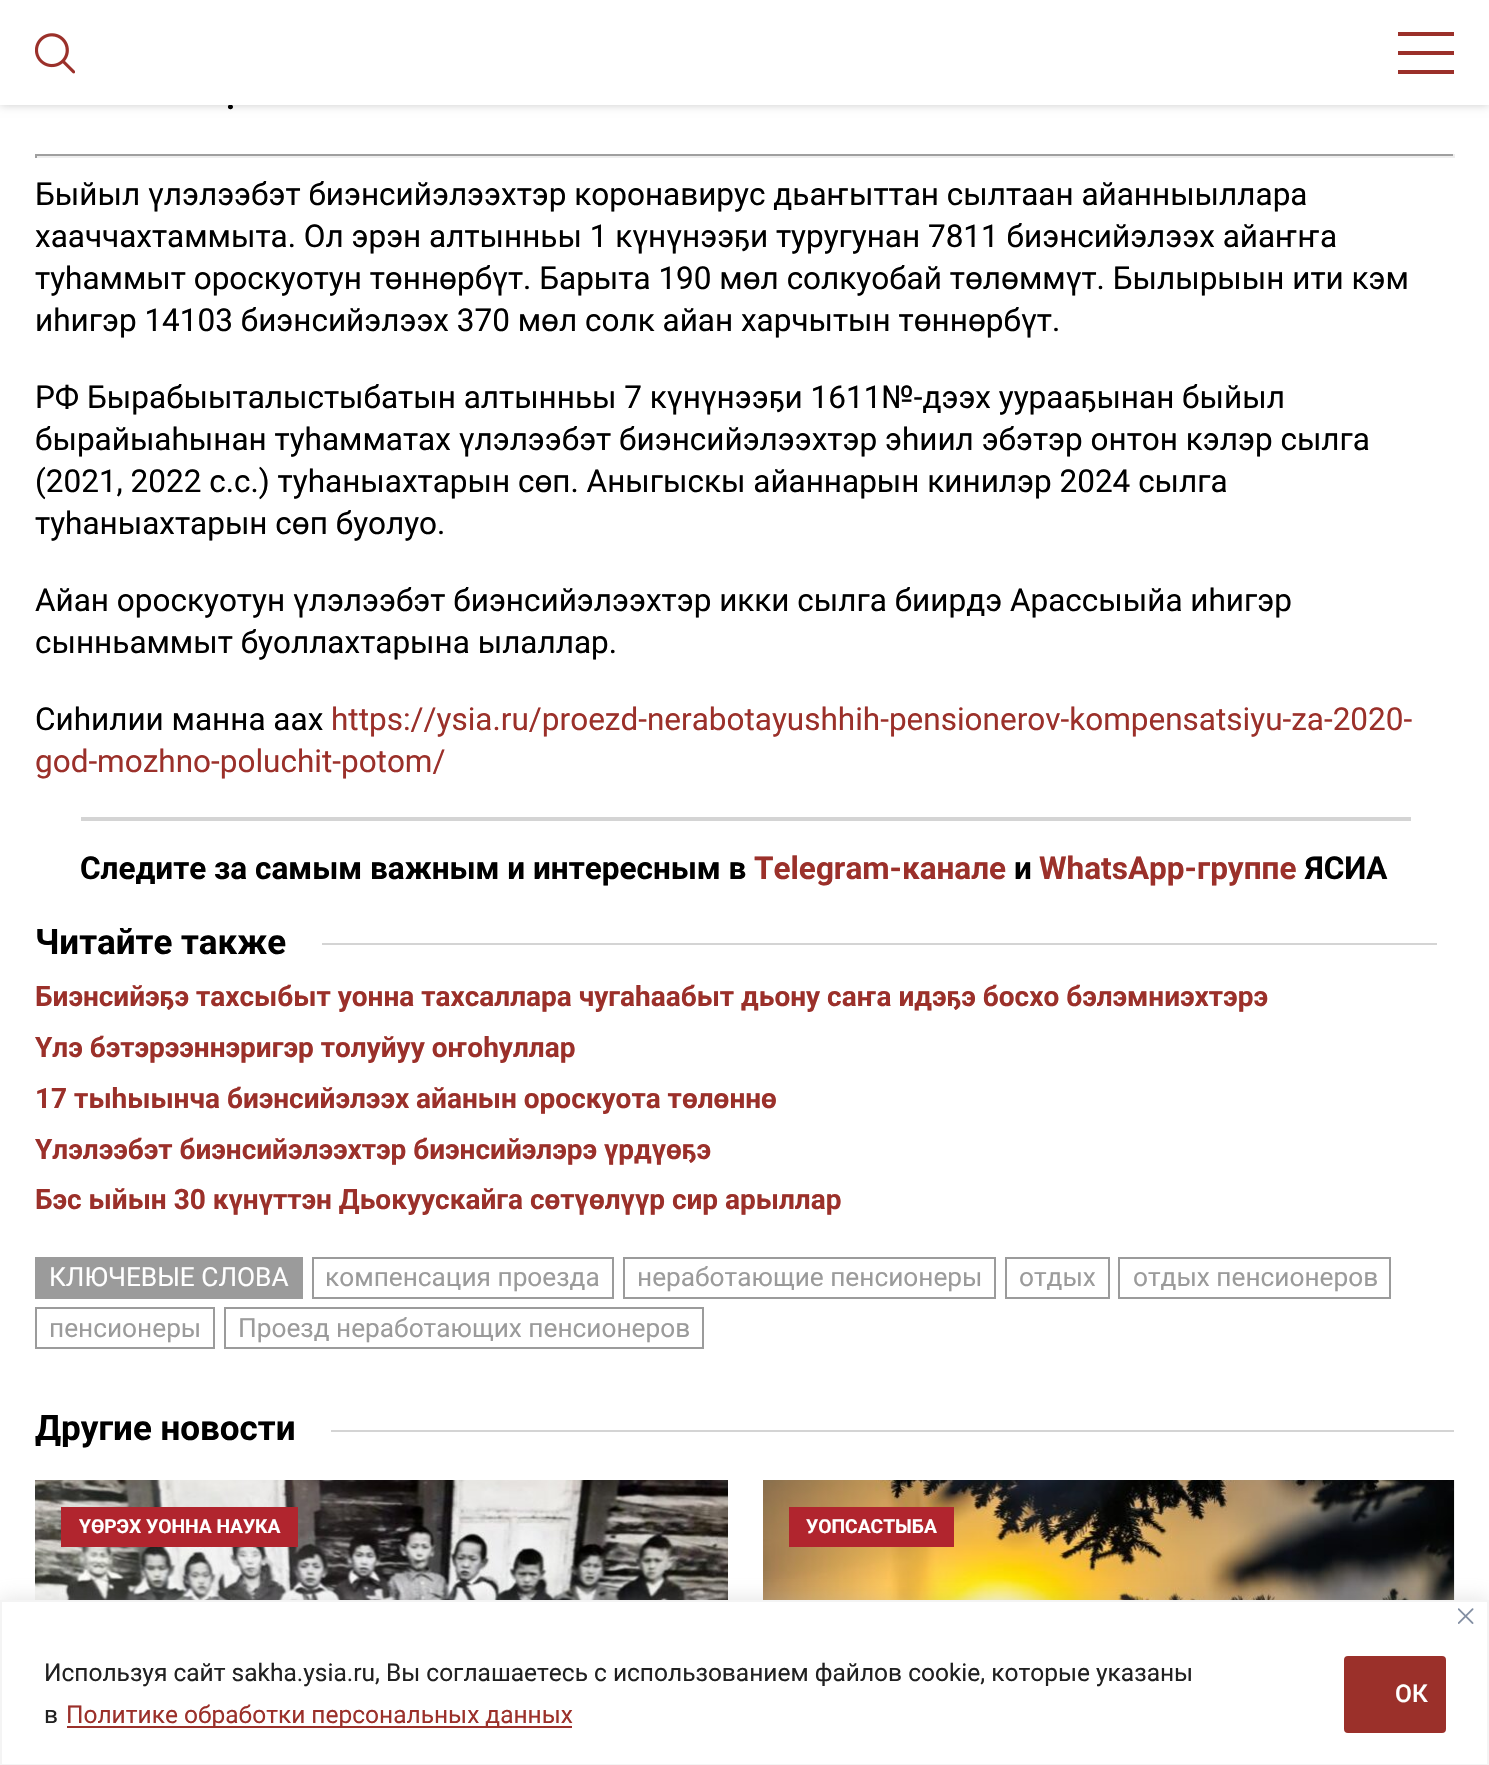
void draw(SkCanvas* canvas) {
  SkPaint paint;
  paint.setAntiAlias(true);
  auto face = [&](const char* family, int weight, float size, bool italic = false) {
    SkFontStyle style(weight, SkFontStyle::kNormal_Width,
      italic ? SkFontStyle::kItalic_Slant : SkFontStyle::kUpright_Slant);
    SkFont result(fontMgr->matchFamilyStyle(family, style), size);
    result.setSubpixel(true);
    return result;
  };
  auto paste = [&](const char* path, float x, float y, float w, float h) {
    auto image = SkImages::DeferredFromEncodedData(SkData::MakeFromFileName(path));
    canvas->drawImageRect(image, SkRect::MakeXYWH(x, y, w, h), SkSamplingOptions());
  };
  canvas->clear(0xffffffff);
  paint.setColor(0xffcccccc);
  paint.setMaskFilter(SkMaskFilter::MakeBlur(kNormal_SkBlurStyle, 4.5f));
  canvas->drawRect(SkRect::MakeXYWH(0, 0, 1489, 105), paint);
  paint.setMaskFilter(nullptr);
  {
    const struct { float x, y, w, h; SkColor color; } items[] = {
      {35, 154, 1419, 2, 0xff9f9f9f},
      {1453, 154, 2, 4, 0xffeeeeee},
      {35, 156, 1419, 2, 0xffeeeeee},
      {35, 154, 2, 4, 0xff9f9f9f},
      {81, 817, 1330, 4, 0xffd4d4d4},
      {322, 943, 1115, 2, 0xffd4d4d4},
      {35, 1257, 268, 42, 0xff9b9b9b},
    };
    for (auto [x, y, w, h, color] : items) {
      paint.setColor(color);
      canvas->drawRect(SkRect::MakeXYWH(x, y, w, h), paint);
    }
  }
  paint.setStroke(true);
  paint.setStrokeWidth(2);
  canvas->drawRect(SkRect::MakeXYWH(313, 1258, 300, 40), paint);
  canvas->drawRect(SkRect::MakeXYWH(624, 1258, 371, 40), paint);
  canvas->drawRect(SkRect::MakeXYWH(1006, 1258, 103, 40), paint);
  canvas->drawRect(SkRect::MakeXYWH(1119, 1258, 271, 40), paint);
  canvas->drawRect(SkRect::MakeXYWH(36, 1308, 178, 40), paint);
  canvas->drawRect(SkRect::MakeXYWH(225, 1308, 478, 40), paint);
  paint.setStroke(false);
  paint.setColor(0xffd4d4d4);
  canvas->drawRect(SkRect::MakeXYWH(331, 1430, 1123, 2), paint);
  paste("img/2.png", 35, 1480, 693, 120);
  paint.setColor(0xffb1252e);
  canvas->drawRect(SkRect::MakeXYWH(61, 1507, 237, 40), paint);
  paste("img/3.png", 763, 1480, 692, 120);
  canvas->drawRect(SkRect::MakeXYWH(789, 1507, 165, 40), paint);
  paint.setColor(0x4dacabab);
  paint.setMaskFilter(SkMaskFilter::MakeBlur(kNormal_SkBlurStyle, 9));
  canvas->drawRect(SkRect::MakeXYWH(0, 1598, 1489, 166), paint);
  paint.setMaskFilter(nullptr);
  paint.setColor(0xffffffff);
  canvas->drawRect(SkRect::MakeXYWH(1, 1601, 1487, 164), paint);
  paint.setStroke(true);
  paint.setColor(0xfff4f4f4);
  canvas->drawRect(SkRect::MakeXYWH(1, 1601, 1487, 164), paint);
  paste("img/4.png", 1458, 1608, 16, 16);
  paint.setStroke(false);
  paint.setColor(0xff9b302a);
  canvas->drawRect(SkRect::MakeXYWH(67, 1726, 505, 2), paint);
  canvas->drawRoundRect(SkRect::MakeXYWH(1346, 1658, 98, 73), 2, 2, paint);
  paint.setStroke(true);
  paint.setStrokeWidth(4);
  canvas->drawRoundRect(SkRect::MakeXYWH(1346, 1658, 98, 73), 2, 2, paint);
  auto f0 = face("Roboto", 700, 31.5f);
  paint.setStroke(false);
  paint.setColor(0xff000000);
  canvas->drawString(".", 226, 109, f0, paint);
  {
    const struct { float x, y, w, h; SkColor color; } items[] = {
      {0, 0, 1489, 105, 0xffffffff},
      {1398, 70, 56, 4, 0xff9b302a},
      {1398, 51, 56, 4, 0xff9b302a},
      {1398, 32, 56, 4, 0xff9b302a},
    };
    for (auto [x, y, w, h, color] : items) {
      paint.setColor(color);
      canvas->drawRect(SkRect::MakeXYWH(x, y, w, h), paint);
    }
  }
  paste("img/1.png", 35, 33, 40, 41);
  auto f1 = face("Roboto", 400, 31.5f);
  paint.setColor(0xff000000);
  {
    const struct { const char* s; float x, y; } items[] = {
      {"Быйыл үлэлээбэт биэнсийэлээхтэр коронавирус дьаҥыттан сылтаан айанныыллара", 35, 205},
      {"хааччахтаммыта. Ол эрэн алтынньы 1 күнүнээҕи туругунан 7811 биэнсийэлээх айаҥҥа", 35, 247},
      {"туһаммыт ороскуотун төннөрбүт. Барыта 190 мөл солкуобай төлөммүт. Былырыын ити кэм", 35, 289},
      {"иһигэр 14103 биэнсийэлээх 370 мөл солк айан харчытын төннөрбүт.", 35, 331},
      {"РФ Бырабыыталыстыбатын алтынньы 7 күнүнээҕи 1611№-дээх уурааҕынан быйыл", 35, 408},
      {"бырайыаһынан туһамматах үлэлээбэт биэнсийэлээхтэр эһиил эбэтэр онтон кэлэр сылга", 35, 450},
      {"(2021, 2022 с.с.) туһаныахтарын сөп. Аныгыскы айаннарын кинилэр 2024 сылга", 35, 492},
      {"туһаныахтарын сөп буолуо.", 35, 534},
      {"Айан ороскуотун үлэлээбэт биэнсийэлээхтэр икки сылга биирдэ Арассыыйа иһигэр", 35, 611},
      {"сынньаммыт буоллахтарына ылаллар.", 35, 653},
      {"Сиһилии манна аах", 35, 730},
    };
    for (auto [s, x, y] : items) {
      canvas->drawString(s, x, y, f1, paint);
    }
  }
  paint.setColor(0xff9b302a);
  canvas->drawString("https://ysia.ru/proezd-nerabotayushhih-pensionerov-kompensatsiyu-za-2020-", 331, 730, f1, paint);
  canvas->drawString("god-mozhno-poluchit-potom/", 35, 772, f1, paint);
  paint.setColor(0xff000000);
  canvas->drawString("Следите за самым важным и интересным в", 80, 879, f0, paint);
  paint.setColor(0xff9b302a);
  canvas->drawString("Telegram-канале", 754, 879, f0, paint);
  paint.setColor(0xff000000);
  canvas->drawString("и", 1014, 879, f0, paint);
  paint.setColor(0xff9b302a);
  canvas->drawString("WhatsApp-группе", 1039, 879, f0, paint);
  paint.setColor(0xff000000);
  canvas->drawString("ЯСИА", 1305, 879, f0, paint);
  auto f2 = face("Roboto", 700, 35);
  canvas->drawString("Читайте также", 35, 954, f2, paint);
  auto f3 = face("Roboto", 700, 28);
  paint.setColor(0xff9b302a);
  {
    const struct { const char* s; float x, y; } items[] = {
      {"Биэнсийэҕэ тахсыбыт уонна тахсаллара чугаһаабыт дьону саҥа идэҕэ босхо бэлэмниэхтэрэ", 35, 1006},
      {"Үлэ бэтэрээннэригэр толуйуу оҥоһуллар", 35, 1057},
      {"17 тыһыынча биэнсийэлээх айанын ороскуота төлөннө", 35, 1108},
      {"Үлэлээбэт биэнсийэлээхтэр биэнсийэлэрэ үрдүөҕэ", 35, 1159},
      {"Бэс ыйын 30 күнүттэн Дьокуускайга сөтүөлүүр сир арыллар", 35, 1209},
    };
    for (auto [s, x, y] : items) {
      canvas->drawString(s, x, y, f3, paint);
    }
  }
  auto f4 = face("Roboto", 400, 26.25f);
  paint.setColor(0xffffffff);
  canvas->drawString("КЛЮЧЕВЫЕ СЛОВА", 49, 1286, f4, paint);
  paint.setColor(0xff9b9b9b);
  {
    const struct { const char* s; float x, y; } items[] = {
      {"компенсация проезда", 325, 1286},
      {"неработающие пенсионеры", 637, 1286},
      {"отдых", 1019, 1286},
      {"отдых пенсионеров", 1133, 1286},
      {"пенсионеры", 49, 1337},
      {"Проезд неработающих пенсионеров", 238, 1337},
    };
    for (auto [s, x, y] : items) {
      canvas->drawString(s, x, y, f4, paint);
    }
  }
  paint.setColor(0xff000000);
  canvas->drawString("Другие новости", 35, 1440, f2, paint);
  auto f5 = face("Roboto", 700, 19.25f);
  paint.setColor(0xffffffff);
  canvas->drawString("ҮӨРЭХ УОННА НАУКА", 79, 1533, f5, paint);
  canvas->drawString("УОПСАСТЫБА", 806, 1533, f5, paint);
  auto f6 = face("Roboto", 400, 24.5f);
  paint.setColor(0xff212121);
  canvas->drawString("Используя сайт sakha.ysia.ru, Вы соглашаетесь с использованием файлов cookie, которые указаны", 44, 1681, f6, paint);
  canvas->drawString("в", 44, 1723, f6, paint);
  paint.setColor(0xff9b302a);
  canvas->drawString("Политике обработки персональных данных", 66, 1723, f6, paint);
  auto f7 = face("Roboto", 500, 24.5f);
  paint.setColor(0xffffffff);
  canvas->drawString("ОК", 1395, 1702, f7, paint);
}
